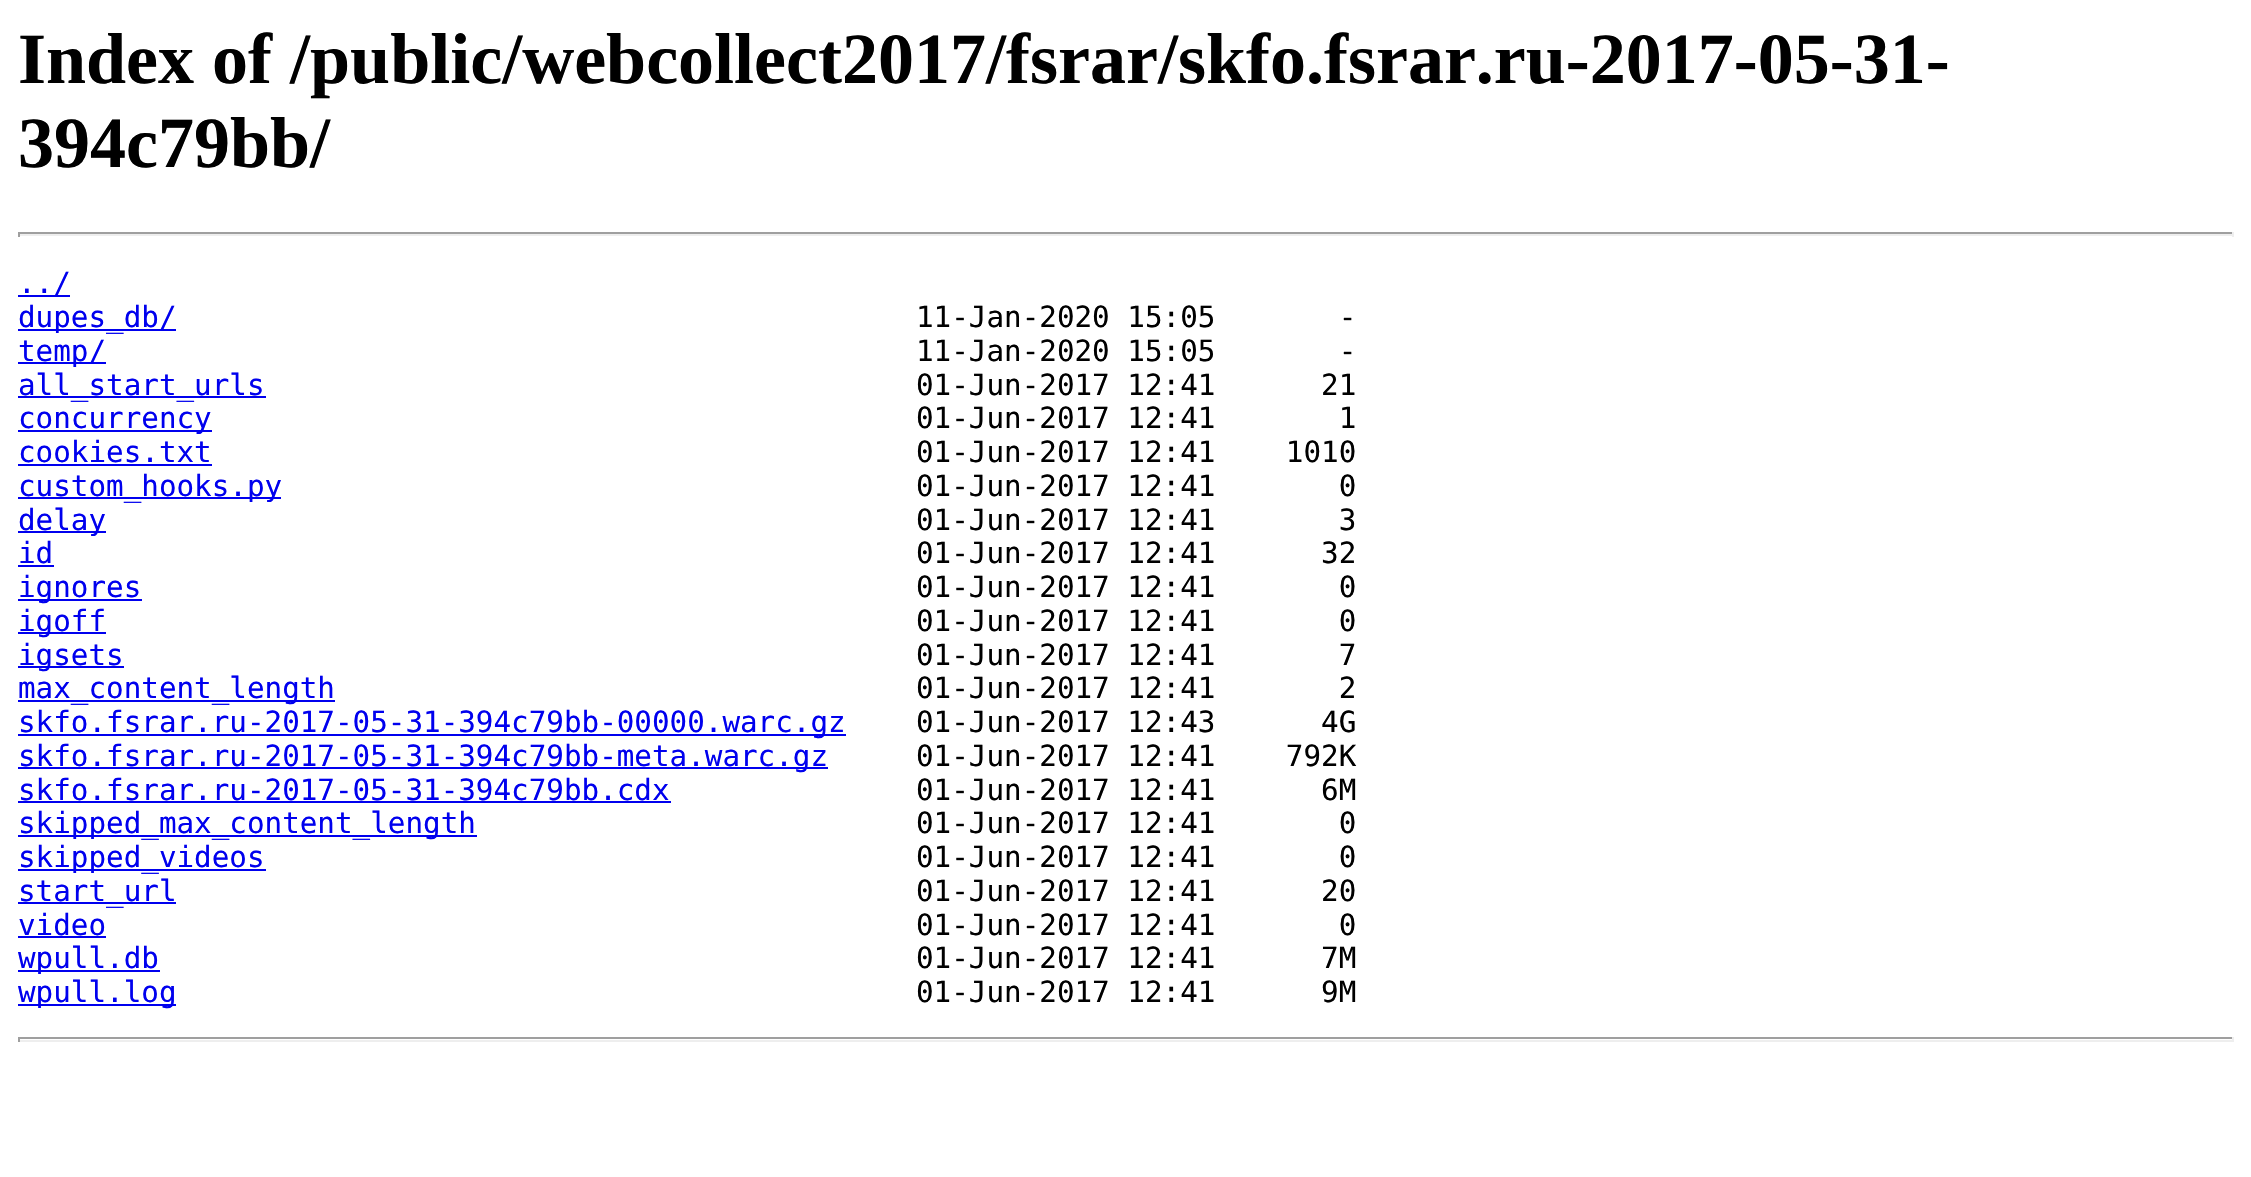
void draw(SkCanvas* canvas) {
  SkPaint paint;
  paint.setAntiAlias(true);
  auto face = [&](const char* family, int weight, float size, bool italic = false) {
    SkFontStyle style(weight, SkFontStyle::kNormal_Width,
      italic ? SkFontStyle::kItalic_Slant : SkFontStyle::kUpright_Slant);
    SkFont result(fontMgr->matchFamilyStyle(family, style), size);
    result.setSubpixel(true);
    return result;
  };
  canvas->clear(0xffffffff);
  {
    const struct { float x, y, w, h; SkColor color; } items[] = {
      {18, 232, 2216, 2, 0xff9f9f9f},
      {2232, 232, 2, 5, 0xffeeeeee},
      {18, 234, 2216, 2, 0xffeeeeee},
      {18, 232, 2, 5, 0xff9f9f9f},
      {18, 295, 52, 2, 0xff0000ee},
      {18, 329, 158, 2, 0xff0000ee},
      {18, 362, 88, 2, 0xff0000ee},
      {18, 396, 248, 2, 0xff0000ee},
      {18, 430, 194, 2, 0xff0000ee},
      {18, 464, 194, 2, 0xff0000ee},
      {18, 497, 263, 2, 0xff0000ee},
      {18, 531, 88, 2, 0xff0000ee},
      {18, 565, 36, 2, 0xff0000ee},
      {18, 599, 124, 2, 0xff0000ee},
      {18, 632, 88, 2, 0xff0000ee},
      {18, 666, 106, 2, 0xff0000ee},
      {18, 700, 317, 2, 0xff0000ee},
      {18, 734, 828, 2, 0xff0000ee},
      {18, 767, 810, 2, 0xff0000ee},
      {18, 801, 653, 2, 0xff0000ee},
      {18, 835, 459, 2, 0xff0000ee},
      {18, 869, 248, 2, 0xff0000ee},
      {18, 902, 158, 2, 0xff0000ee},
      {18, 936, 88, 2, 0xff0000ee},
      {18, 970, 142, 2, 0xff0000ee},
      {18, 1004, 158, 2, 0xff0000ee},
      {18, 1037, 2216, 2, 0xff9f9f9f},
      {2232, 1037, 2, 5, 0xffeeeeee},
      {18, 1040, 2216, 2, 0xffeeeeee},
      {18, 1037, 2, 5, 0xff9f9f9f},
    };
    for (auto [x, y, w, h, color] : items) {
      paint.setColor(color);
      canvas->drawRect(SkRect::MakeXYWH(x, y, w, h), paint);
    }
  }
  auto f0 = face("Liberation Serif", 700, 72);
  paint.setColor(0xff000000);
  canvas->drawString("Index of /public/webcollect2017/fsrar/skfo.fsrar.ru-2017-05-31-", 18, 83, f0, paint);
  canvas->drawString("394c79bb/", 18, 167, f0, paint);
  auto f1 = face("DejaVu Sans Mono", 400, 29.25f);
  paint.setColor(0xff0000ee);
  canvas->drawString("../", 18, 293, f1, paint);
  canvas->drawString("dupes_db/", 18, 327, f1, paint);
  paint.setColor(0xff000000);
  canvas->drawString("11-Jan-2020 15:05       -", 916, 327, f1, paint);
  paint.setColor(0xff0000ee);
  canvas->drawString("temp/", 18, 361, f1, paint);
  paint.setColor(0xff000000);
  canvas->drawString("11-Jan-2020 15:05       -", 916, 361, f1, paint);
  paint.setColor(0xff0000ee);
  canvas->drawString("all_start_urls", 18, 395, f1, paint);
  paint.setColor(0xff000000);
  canvas->drawString("01-Jun-2017 12:41      21", 916, 395, f1, paint);
  paint.setColor(0xff0000ee);
  canvas->drawString("concurrency", 18, 428, f1, paint);
  paint.setColor(0xff000000);
  canvas->drawString("01-Jun-2017 12:41       1", 916, 428, f1, paint);
  paint.setColor(0xff0000ee);
  canvas->drawString("cookies.txt", 18, 462, f1, paint);
  paint.setColor(0xff000000);
  canvas->drawString("01-Jun-2017 12:41    1010", 916, 462, f1, paint);
  paint.setColor(0xff0000ee);
  canvas->drawString("custom_hooks.py", 18, 496, f1, paint);
  paint.setColor(0xff000000);
  canvas->drawString("01-Jun-2017 12:41       0", 916, 496, f1, paint);
  paint.setColor(0xff0000ee);
  canvas->drawString("delay", 18, 530, f1, paint);
  paint.setColor(0xff000000);
  canvas->drawString("01-Jun-2017 12:41       3", 916, 530, f1, paint);
  paint.setColor(0xff0000ee);
  canvas->drawString("id", 18, 563, f1, paint);
  paint.setColor(0xff000000);
  canvas->drawString("01-Jun-2017 12:41      32", 916, 563, f1, paint);
  paint.setColor(0xff0000ee);
  canvas->drawString("ignores", 18, 597, f1, paint);
  paint.setColor(0xff000000);
  canvas->drawString("01-Jun-2017 12:41       0", 916, 597, f1, paint);
  paint.setColor(0xff0000ee);
  canvas->drawString("igoff", 18, 631, f1, paint);
  paint.setColor(0xff000000);
  canvas->drawString("01-Jun-2017 12:41       0", 916, 631, f1, paint);
  paint.setColor(0xff0000ee);
  canvas->drawString("igsets", 18, 665, f1, paint);
  paint.setColor(0xff000000);
  canvas->drawString("01-Jun-2017 12:41       7", 916, 665, f1, paint);
  paint.setColor(0xff0000ee);
  canvas->drawString("max_content_length", 18, 698, f1, paint);
  paint.setColor(0xff000000);
  canvas->drawString("01-Jun-2017 12:41       2", 916, 698, f1, paint);
  paint.setColor(0xff0000ee);
  canvas->drawString("skfo.fsrar.ru-2017-05-31-394c79bb-00000.warc.gz", 18, 732, f1, paint);
  paint.setColor(0xff000000);
  canvas->drawString("01-Jun-2017 12:43      4G", 916, 732, f1, paint);
  paint.setColor(0xff0000ee);
  canvas->drawString("skfo.fsrar.ru-2017-05-31-394c79bb-meta.warc.gz", 18, 766, f1, paint);
  paint.setColor(0xff000000);
  canvas->drawString("01-Jun-2017 12:41    792K", 916, 766, f1, paint);
  paint.setColor(0xff0000ee);
  canvas->drawString("skfo.fsrar.ru-2017-05-31-394c79bb.cdx", 18, 800, f1, paint);
  paint.setColor(0xff000000);
  canvas->drawString("01-Jun-2017 12:41      6M", 916, 800, f1, paint);
  paint.setColor(0xff0000ee);
  canvas->drawString("skipped_max_content_length", 18, 833, f1, paint);
  paint.setColor(0xff000000);
  canvas->drawString("01-Jun-2017 12:41       0", 916, 833, f1, paint);
  paint.setColor(0xff0000ee);
  canvas->drawString("skipped_videos", 18, 867, f1, paint);
  paint.setColor(0xff000000);
  canvas->drawString("01-Jun-2017 12:41       0", 916, 867, f1, paint);
  paint.setColor(0xff0000ee);
  canvas->drawString("start_url", 18, 901, f1, paint);
  paint.setColor(0xff000000);
  canvas->drawString("01-Jun-2017 12:41      20", 916, 901, f1, paint);
  paint.setColor(0xff0000ee);
  canvas->drawString("video", 18, 935, f1, paint);
  paint.setColor(0xff000000);
  canvas->drawString("01-Jun-2017 12:41       0", 916, 935, f1, paint);
  paint.setColor(0xff0000ee);
  canvas->drawString("wpull.db", 18, 968, f1, paint);
  paint.setColor(0xff000000);
  canvas->drawString("01-Jun-2017 12:41      7M", 916, 968, f1, paint);
  paint.setColor(0xff0000ee);
  canvas->drawString("wpull.log", 18, 1002, f1, paint);
  paint.setColor(0xff000000);
  canvas->drawString("01-Jun-2017 12:41      9M", 916, 1002, f1, paint);
}
